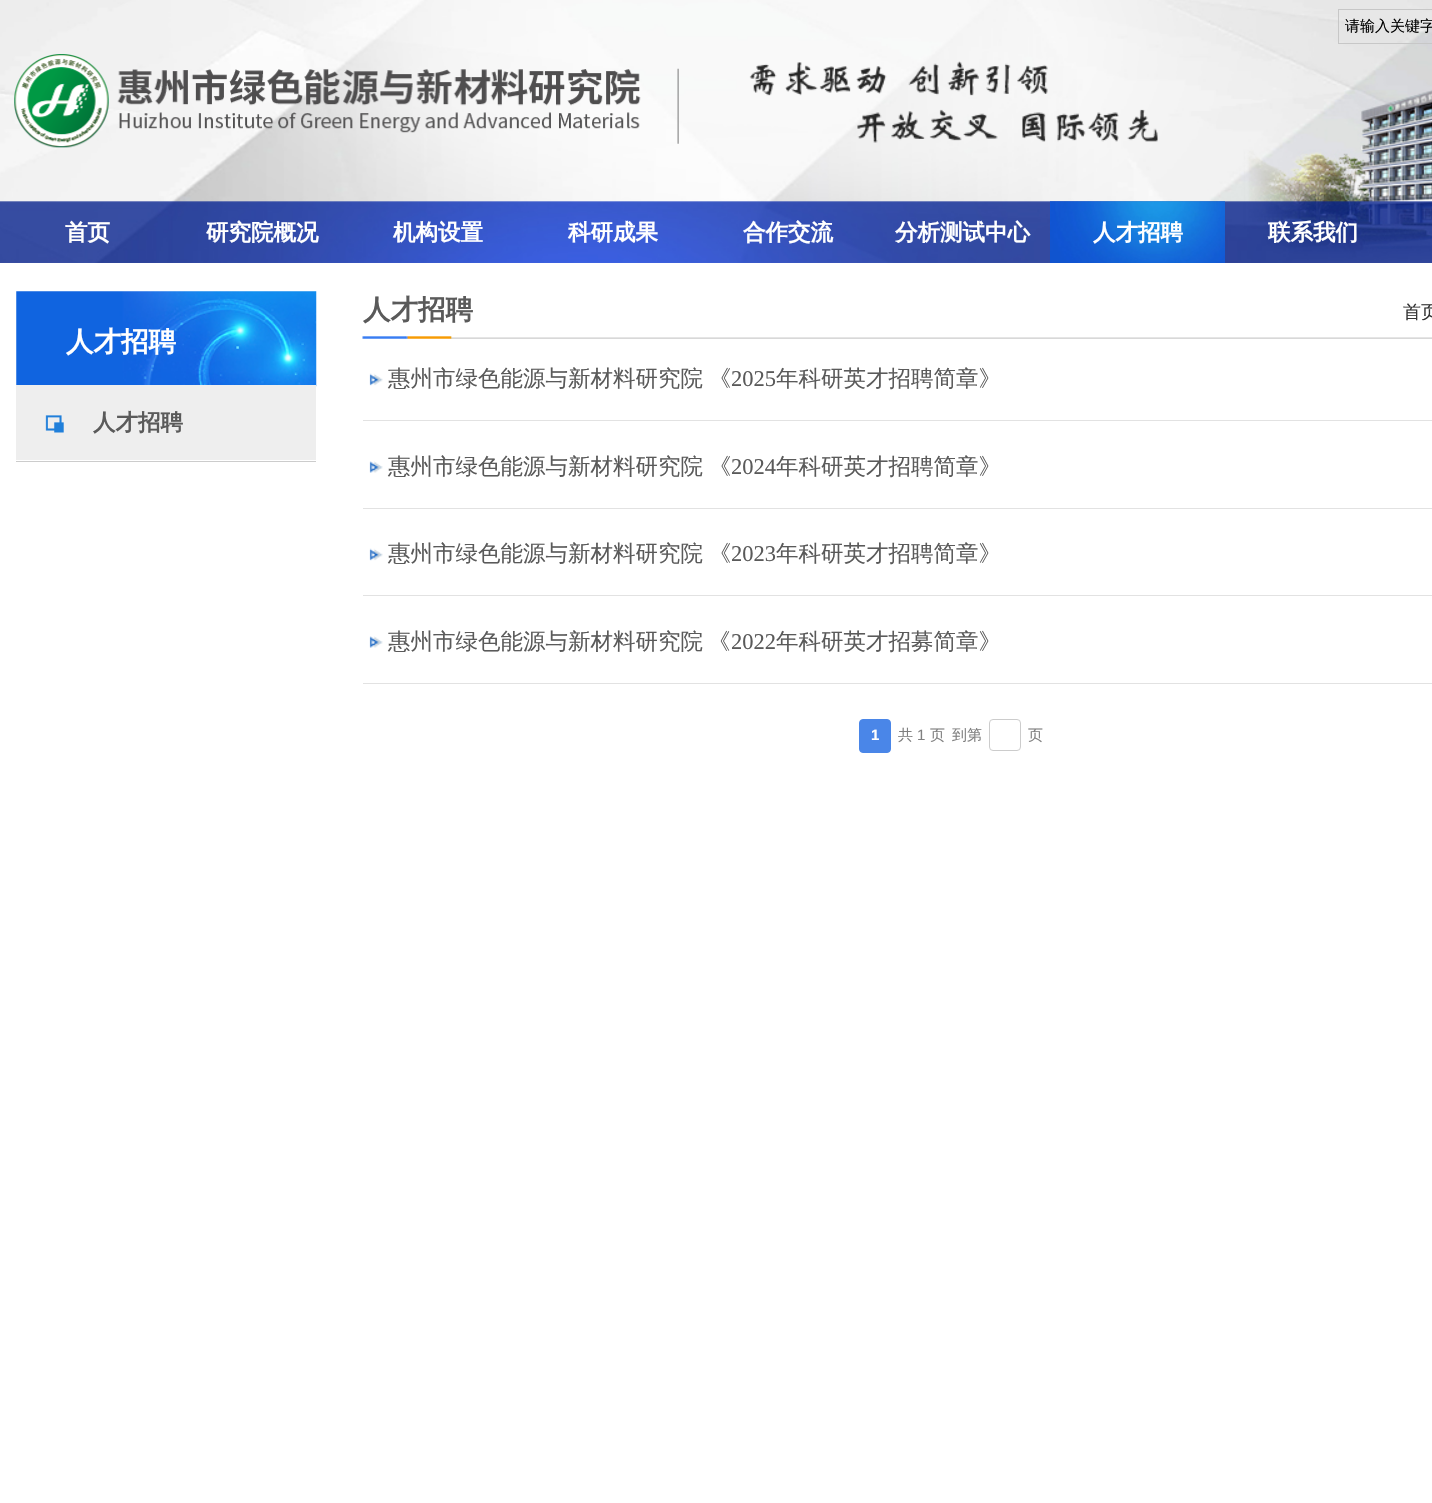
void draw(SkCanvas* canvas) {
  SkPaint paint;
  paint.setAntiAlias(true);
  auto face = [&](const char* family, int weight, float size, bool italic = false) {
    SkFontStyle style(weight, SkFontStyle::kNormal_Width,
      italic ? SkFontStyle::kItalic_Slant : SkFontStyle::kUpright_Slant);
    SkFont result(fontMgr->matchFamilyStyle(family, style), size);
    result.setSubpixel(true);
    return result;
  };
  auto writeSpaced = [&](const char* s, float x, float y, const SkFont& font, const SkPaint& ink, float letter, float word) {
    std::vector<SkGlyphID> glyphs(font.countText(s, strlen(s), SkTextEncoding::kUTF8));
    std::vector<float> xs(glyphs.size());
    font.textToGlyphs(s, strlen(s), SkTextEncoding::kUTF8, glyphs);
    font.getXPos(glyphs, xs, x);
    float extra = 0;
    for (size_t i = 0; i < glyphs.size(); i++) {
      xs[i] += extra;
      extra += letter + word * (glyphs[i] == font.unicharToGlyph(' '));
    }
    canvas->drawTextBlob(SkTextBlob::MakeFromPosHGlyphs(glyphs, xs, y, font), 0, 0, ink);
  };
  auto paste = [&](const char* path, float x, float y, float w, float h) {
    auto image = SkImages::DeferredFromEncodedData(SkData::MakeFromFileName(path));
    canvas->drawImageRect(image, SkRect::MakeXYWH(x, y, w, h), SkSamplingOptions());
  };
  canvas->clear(0xffffffff);
  paste("img/1.png", 0, 0, 1432, 263);
  paint.setStroke(true);
  paint.setStrokeWidth(1);
  paint.setColor(0xffc7c7c7);
  canvas->drawRect(SkRect::MakeXYWH(1338.5f, 9.5f, 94, 34), paint);
  paste("img/2.png", 14, 54, 627, 94);
  paste("img/3.png", 677, 61, 481, 83);
  paste("img/4.png", 1050, 201, 175, 62);
  paste("img/5.png", 362, 336, 1070, 3);
  paste("img/6.png", 16, 291, 301, 96);
  paint.setStroke(false);
  paint.setColor(0xffcccccc);
  canvas->drawRect(SkRect::MakeXYWH(16, 461, 300, 1), paint);
  paint.setColor(0xffeeeeee);
  canvas->drawRect(SkRect::MakeXYWH(16, 385, 300, 75), paint);
  paste("img/7.png", 45, 415, 19, 18);
  paste("img/8.png", 369, 373, 14, 13);
  paint.setColor(0xffe2e2e2);
  canvas->drawRect(SkRect::MakeXYWH(363, 420, 1069, 1), paint);
  paste("img/9.png", 369, 461, 14, 12);
  canvas->drawRect(SkRect::MakeXYWH(363, 508, 1069, 1), paint);
  paste("img/8.png", 369, 548, 14, 13);
  canvas->drawRect(SkRect::MakeXYWH(363, 595, 1069, 1), paint);
  paste("img/9.png", 369, 636, 14, 12);
  canvas->drawRect(SkRect::MakeXYWH(363, 683, 1069, 1), paint);
  paint.setColor(0xff4a86e8);
  canvas->drawRoundRect(SkRect::MakeXYWH(859.5f, 719.5f, 31, 33), 3.5f, 3.5f, paint);
  paint.setStroke(true);
  canvas->drawRoundRect(SkRect::MakeXYWH(859.5f, 719.5f, 31, 33), 3.5f, 3.5f, paint);
  paint.setColor(0xffcccccc);
  canvas->drawRoundRect(SkRect::MakeXYWH(989.5f, 719.5f, 31, 31), 3.5f, 3.5f, paint);
  auto f0 = face("WenQuanYi Zen Hei", 500, 15);
  paint.setStroke(false);
  paint.setColor(0xff000000);
  canvas->drawString("请输入关键字", 1345, 31, f0, paint);
  auto f1 = face("WenQuanYi Zen Hei", 700, 22.5f);
  paint.setColor(0xffffffff);
  {
    const struct { const char* s; float x, y; } items[] = {
      {"首页", 65, 240},
      {"研究院概况", 206, 240},
      {"机构设置", 393, 240},
      {"科研成果", 568, 240},
      {"合作交流", 743, 240},
      {"分析测试中心", 895, 240},
      {"人才招聘", 1093, 240},
      {"联系我们", 1268, 240},
    };
    for (auto [s, x, y] : items) {
      canvas->drawString(s, x, y, f1, paint);
    }
  }
  auto f2 = face("WenQuanYi Zen Hei", 700, 27.5f);
  paint.setColor(0xff5a5a5a);
  canvas->drawString("人才招聘", 363, 319, f2, paint);
  auto f3 = face("WenQuanYi Zen Hei", 500, 18);
  paint.setColor(0xff333333);
  canvas->drawString("首页", 1403, 318, f3, paint);
  paint.setColor(0xffffffff);
  canvas->drawString("人才招聘", 66, 351, f2, paint);
  paint.setColor(0xff5a5a5a);
  canvas->drawString("人才招聘", 93, 430, f1, paint);
  auto f4 = face("WenQuanYi Zen Hei", 500, 22.5f);
  writeSpaced("惠州市绿色能源与新材料研究院 《", 388, 386, f4, paint, 0, -1);
  auto f5 = face("Liberation Serif", 400, 22.5f);
  canvas->drawString("2025", 731, 386, f5, paint);
  canvas->drawString("年科研英才招聘简章》", 776, 386, f4, paint);
  writeSpaced("惠州市绿色能源与新材料研究院 《", 388, 474, f4, paint, 0, -1);
  canvas->drawString("2024", 731, 474, f5, paint);
  canvas->drawString("年科研英才招聘简章》", 776, 474, f4, paint);
  writeSpaced("惠州市绿色能源与新材料研究院 《", 388, 561, f4, paint, 0, -1);
  canvas->drawString("2023", 731, 561, f5, paint);
  {
    const struct { const char* s; float x, y; } items[] = {
      {"年科研英才招聘简章》", 776, 561},
      {"惠州市绿色能源与新材料研究院", 388, 649},
      {"《", 708, 649},
    };
    for (auto [s, x, y] : items) {
      canvas->drawString(s, x, y, f4, paint);
    }
  }
  canvas->drawString("2022", 731, 649, f5, paint);
  canvas->drawString("年科研英才招募简章》", 776, 649, f4, paint);
  auto f6 = face("Liberation Sans", 700, 15);
  paint.setColor(0xffffffff);
  canvas->drawString("1", 871, 740, f6, paint);
  paint.setColor(0xff808080);
  canvas->drawString("共", 898, 740, f0, paint);
  auto f7 = face("Liberation Sans", 400, 15);
  canvas->drawString("1", 917, 740, f7, paint);
  {
    const struct { const char* s; float x, y; } items[] = {
      {"页", 930, 740},
      {"到第", 952, 740},
      {"页", 1028, 740},
    };
    for (auto [s, x, y] : items) {
      canvas->drawString(s, x, y, f0, paint);
    }
  }
}
